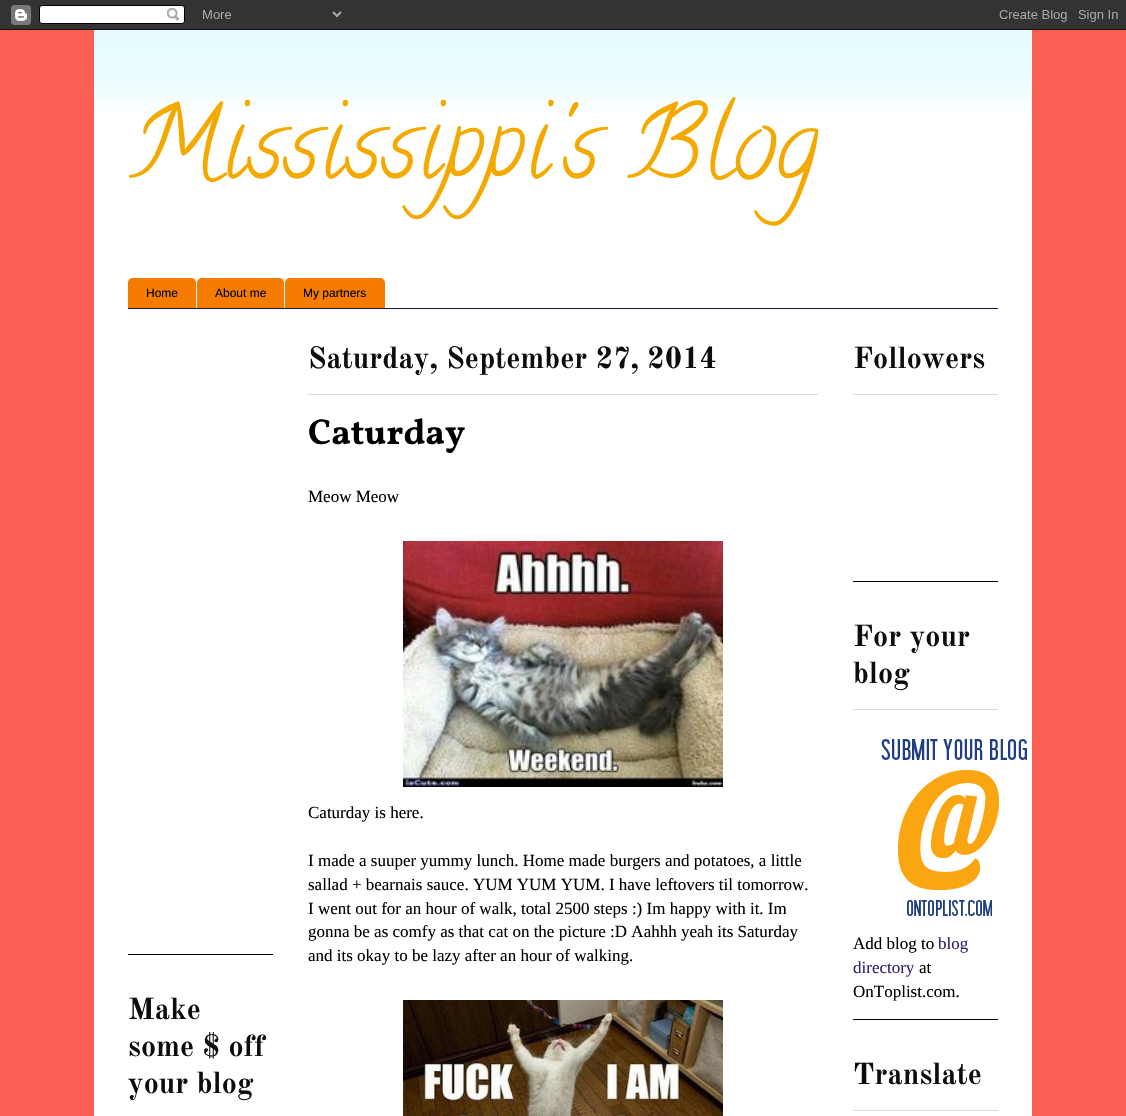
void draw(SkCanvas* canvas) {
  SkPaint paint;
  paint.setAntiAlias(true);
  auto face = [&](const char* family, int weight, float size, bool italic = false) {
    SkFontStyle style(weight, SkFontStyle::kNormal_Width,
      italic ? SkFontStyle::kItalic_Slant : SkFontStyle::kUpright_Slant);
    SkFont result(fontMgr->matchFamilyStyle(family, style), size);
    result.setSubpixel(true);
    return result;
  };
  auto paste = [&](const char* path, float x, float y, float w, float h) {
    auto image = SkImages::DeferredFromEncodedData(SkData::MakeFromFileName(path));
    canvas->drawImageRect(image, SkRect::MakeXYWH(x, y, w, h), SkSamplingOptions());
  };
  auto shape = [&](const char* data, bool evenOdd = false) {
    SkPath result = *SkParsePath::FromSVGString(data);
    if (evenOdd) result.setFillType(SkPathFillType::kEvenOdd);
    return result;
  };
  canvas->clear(0xfffb5e53);
  paste("img/1.png", 0, 0, 1126, 30);
  paint.setColor(0xffffffff);
  canvas->drawRect(SkRect::MakeXYWH(94, 30, 938, 1086), paint);
  paste("img/2.png", 94, 30, 938, 84);
  paint.setColor(0xff20124d);
  canvas->drawRect(SkRect::MakeXYWH(128, 308, 870, 1), paint);
  paint.setColor(0xfff57c00);
  canvas->drawPath(shape("M133 278H191C194 278 196 280 196 283V308H128V283C128 280 130 278 133 278Z"), paint);
  canvas->drawPath(shape("M202 278H279C282 278 284 280 284 283V308H197V283C197 280 199 278 202 278Z"), paint);
  canvas->drawPath(shape("M290 278H380C383 278 385 280 385 283V308H285V283C285 280 287 278 290 278Z"), paint);
  paint.setColor(0xff000000);
  canvas->drawRect(SkRect::MakeXYWH(128, 954, 145, 1), paint);
  paint.setColor(0xffdbdbdb);
  canvas->drawRect(SkRect::MakeXYWH(308, 394, 510, 1), paint);
  paste("img/3.png", 403, 541, 320, 246);
  paste("img/4.png", 403, 1000, 320, 116);
  {
    const struct { float x, y, w, h; SkColor color; } items[] = {
      {853, 581, 145, 1, 0xff000000},
      {853, 394, 145, 1, 0xffdbdbdb},
      {853, 1019, 145, 1, 0xff000000},
      {853, 709, 145, 1, 0xffdbdbdb},
    };
    for (auto [x, y, w, h, color] : items) {
      paint.setColor(color);
      canvas->drawRect(SkRect::MakeXYWH(x, y, w, h), paint);
    }
  }
  paste("img/5.png", 881, 739, 146, 177);
  canvas->drawRect(SkRect::MakeXYWH(853, 1110, 145, 1), paint);
  auto f0 = face("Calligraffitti", 400, 100);
  paint.setColor(0xfff4a900);
  canvas->drawString("Mississippi's Blog", 128, 175, f0, paint);
  auto f1 = face("Liberation Sans", 400, 12);
  paint.setColor(0xff000000);
  {
    const struct { const char* s; float x, y; } items[] = {
      {"Home", 146, 297},
      {"About me", 215, 297},
      {"My partners", 303, 297},
    };
    for (auto [s, x, y] : items) {
      canvas->drawString(s, x, y, f1, paint);
    }
  }
  auto f2 = face("Old Standard TT", 700, 30);
  paint.setColor(0xff0e0d0d);
  {
    const struct { const char* s; float x, y; } items[] = {
      {"Make", 128, 1019},
      {"some $ off", 128, 1056},
      {"your blog", 128, 1093},
      {"Saturday, September 27, 2014", 308, 368},
    };
    for (auto [s, x, y] : items) {
      canvas->drawString(s, x, y, f2, paint);
    }
  }
  auto f3 = face("Vollkorn", 700, 36);
  paint.setColor(0xff000000);
  canvas->drawString("Caturday", 308, 444, f3, paint);
  auto f4 = face("Liberation Serif", 400, 17);
  {
    const struct { const char* s; float x, y; } items[] = {
      {"Meow Meow", 308, 502},
      {"Caturday is here.", 308, 818},
      {"I made a suuper yummy lunch. Home made burgers and potatoes, a little", 308, 866},
      {"sallad + bearnais sauce. YUM YUM YUM. I have leftovers til tomorrow.", 308, 890},
      {"I went out for an hour of walk, total 2500 steps :) Im happy with it. Im", 308, 914},
      {"gonna be as comfy as that cat on the picture :D Aahhh yeah its Saturday", 308, 937},
      {"and its okay to be lazy after an hour of walking.", 308, 961},
    };
    for (auto [s, x, y] : items) {
      canvas->drawString(s, x, y, f4, paint);
    }
  }
  paint.setColor(0xff0e0d0d);
  {
    const struct { const char* s; float x, y; } items[] = {
      {"Followers", 853, 368},
      {"For your", 853, 646},
      {"blog", 853, 683},
    };
    for (auto [s, x, y] : items) {
      canvas->drawString(s, x, y, f2, paint);
    }
  }
  paint.setColor(0xff000000);
  canvas->drawString("Add blog to", 853, 949, f4, paint);
  paint.setColor(0xff351c75);
  canvas->drawString("blog", 938, 949, f4, paint);
  canvas->drawString("directory", 853, 973, f4, paint);
  paint.setColor(0xff000000);
  canvas->drawString("at", 919, 973, f4, paint);
  canvas->drawString("OnToplist.com.", 853, 997, f4, paint);
  paint.setColor(0xff0e0d0d);
  canvas->drawString("Translate", 853, 1084, f2, paint);
}
